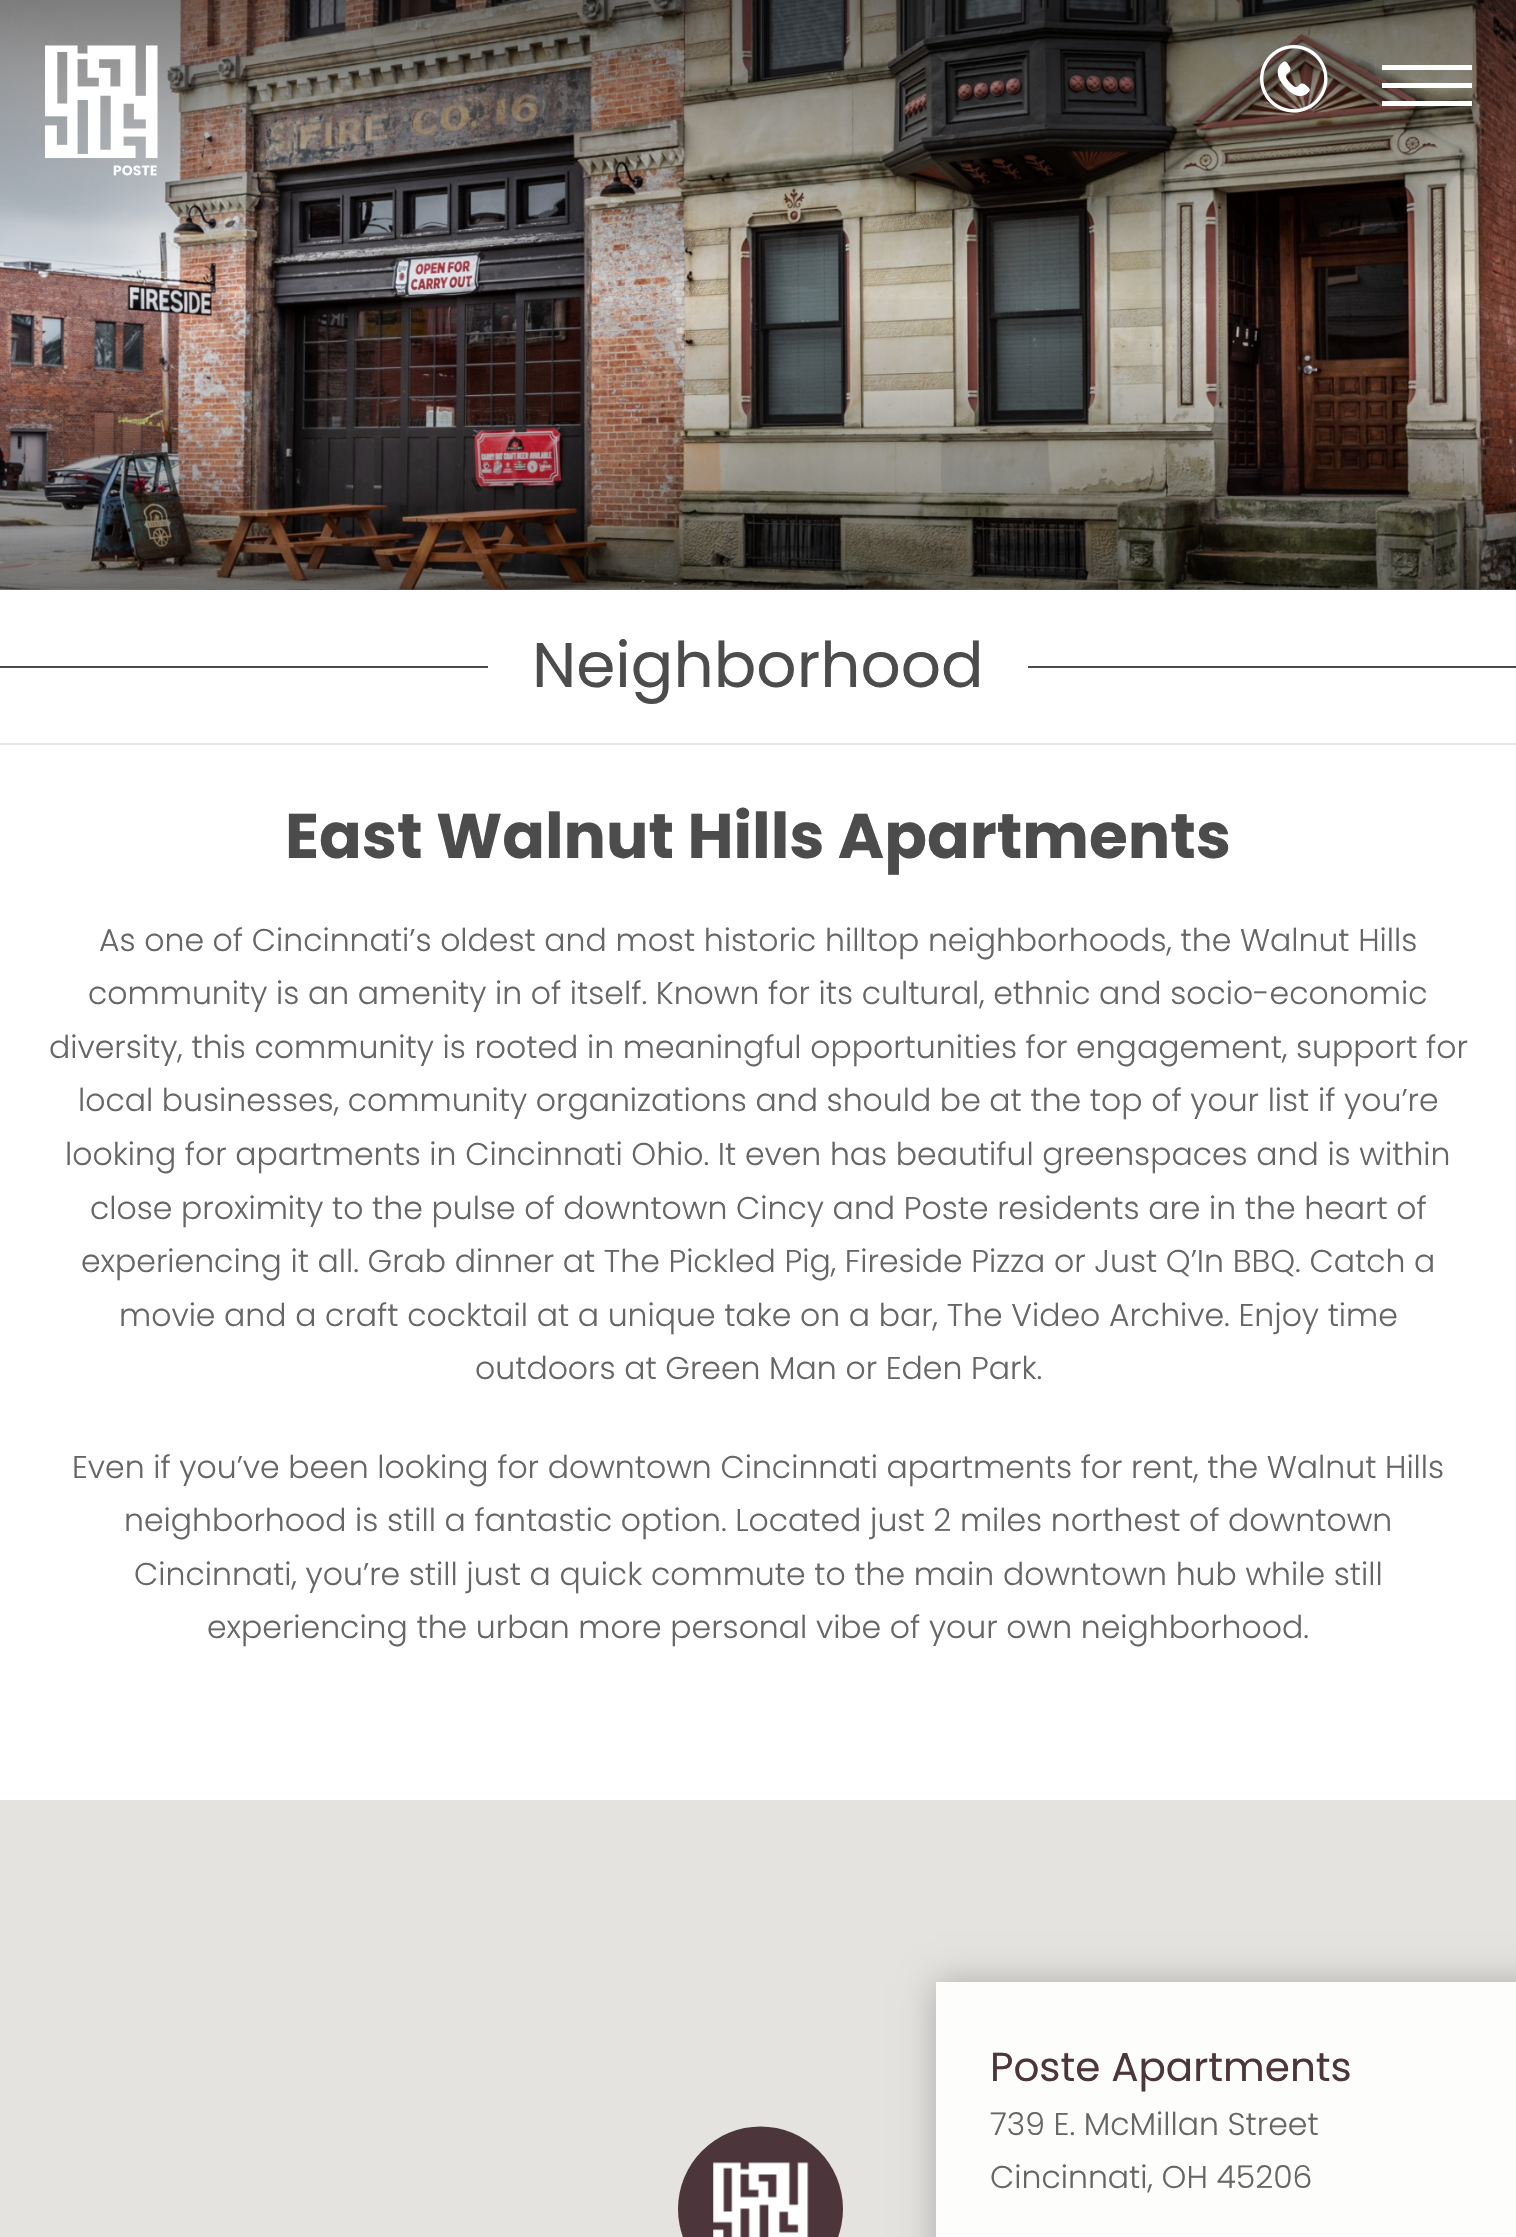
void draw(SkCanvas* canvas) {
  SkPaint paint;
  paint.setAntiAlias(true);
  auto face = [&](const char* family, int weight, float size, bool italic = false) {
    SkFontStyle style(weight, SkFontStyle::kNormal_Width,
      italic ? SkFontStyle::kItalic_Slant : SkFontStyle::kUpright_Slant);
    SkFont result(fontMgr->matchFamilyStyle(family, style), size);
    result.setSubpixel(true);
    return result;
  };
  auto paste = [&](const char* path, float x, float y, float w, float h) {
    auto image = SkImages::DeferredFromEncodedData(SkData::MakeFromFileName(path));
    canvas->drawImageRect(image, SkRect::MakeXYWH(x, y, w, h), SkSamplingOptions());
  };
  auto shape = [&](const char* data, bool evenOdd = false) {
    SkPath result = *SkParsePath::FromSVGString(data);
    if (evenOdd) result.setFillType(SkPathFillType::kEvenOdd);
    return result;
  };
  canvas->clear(0xffffffff);
  paste("img/3.png", 0, 589, 1516, 1);
  paste("img/4.png", 0, 0, 1516, 590);
  paste("img/1.png", 45, 45, 113, 131);
  paste("img/2.png", 1260, 45, 68, 68);
  {
    const struct { float x, y, w, h; SkColor color; } items[] = {
      {1382, 65, 90, 5, 0xffffffff},
      {1382, 83, 90, 5, 0xffffffff},
      {1382, 101, 90, 5, 0xffffffff},
      {0, 743, 1516, 2, 0xffe5e5e5},
    };
    for (auto [x, y, w, h, color] : items) {
      paint.setColor(color);
      canvas->drawRect(SkRect::MakeXYWH(x, y, w, h), paint);
    }
  }
  {
    const SkColor colors[] = {0x00000000, 0x80000000};
    const float stops[] = {0, 1};
    const SkPoint ends[] = {{758, 286}, {758, 590}};
    paint.setShader(SkGradientShader::MakeLinear(ends, colors, stops, 2, SkTileMode::kClamp));
    paint.setAlpha(255);
  }
  canvas->drawRect(SkRect::MakeXYWH(0, 299, 1516, 291), paint);
  paint.setShader(nullptr);
  {
    const struct { float x, y, w, h; SkColor color; } items[] = {
      {0, 666, 488, 2, 0xff4c4c4c},
      {1028, 666, 488, 2, 0xff4c4c4c},
      {0, 1800, 1516, 437, 0xffe5e3df},
    };
    for (auto [x, y, w, h, color] : items) {
      paint.setColor(color);
      canvas->drawRect(SkRect::MakeXYWH(x, y, w, h), paint);
    }
  }
  paint.setColor(0xff4c353b);
  canvas->drawCircle(760.5f, 2209, 82.5f, paint);
  paste("img/5.png", 713, 2162, 96, 75);
  canvas->save();
  canvas->clipPath(shape("M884 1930H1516V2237H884ZM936 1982H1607V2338H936Z", true), true);
  paint.setColor(0xffaaaaaa);
  paint.setMaskFilter(SkMaskFilter::MakeBlur(kNormal_SkBlurStyle, 17));
  canvas->drawRect(SkRect::MakeXYWH(936, 1982, 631, 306), paint);
  paint.setMaskFilter(nullptr);
  canvas->restore();
  paint.setColor(0xe6ffffff);
  canvas->drawRect(SkRect::MakeXYWH(936, 1982, 580, 255), paint);
  auto f0 = face("Poppins", 400, 63);
  paint.setColor(0xff4c4c4c);
  canvas->drawString("Neighborhood", 532, 687, f0, paint);
  auto f1 = face("Poppins", 700, 63);
  canvas->drawString("East Walnut Hills Apartments", 285, 858, f1, paint);
  auto f2 = face("Poppins", 300, 31.5f);
  paint.setColor(0xff666666);
  {
    const struct { const char* s; float x, y; } items[] = {
      {"As one of Cincinnati’s oldest and most historic hilltop neighborhoods, the Walnut Hills", 99, 951},
      {"community is an amenity in of itself. Known for its cultural, ethnic and socio-economic", 88, 1004},
      {"diversity, this community is rooted in meaningful opportunities for engagement, support for", 49, 1058},
      {"local businesses, community organizations and should be at the top of your list if you’re", 78, 1111},
      {"looking for apartments in Cincinnati Ohio. It even has beautiful greenspaces and is within", 65, 1165},
      {"close proximity to the pulse of downtown Cincy and Poste residents are in the heart of", 90, 1219},
      {"experiencing it all. Grab dinner at The Pickled Pig, Fireside Pizza or Just Q’In BBQ. Catch a", 81, 1272},
      {"movie and a craft cocktail at a unique take on a bar, The Video Archive. Enjoy time", 119, 1326},
      {"outdoors at Green Man or Eden Park.", 475, 1379},
      {"Even if you’ve been looking for downtown Cincinnati apartments for rent, the Walnut Hills", 72, 1478},
      {"neighborhood is still a fantastic option. Located just 2 miles northest of downtown", 124, 1531},
      {"Cincinnati, you’re still just a quick commute to the main downtown hub while still", 134, 1585},
      {"experiencing the urban more personal vibe of your own neighborhood.", 207, 1638},
    };
    for (auto [s, x, y] : items) {
      canvas->drawString(s, x, y, f2, paint);
    }
  }
  auto f3 = face("Poppins", 400, 40.5f);
  paint.setColor(0xff4c353b);
  canvas->drawString("Poste Apartments", 990, 2081, f3, paint);
  paint.setColor(0xff666666);
  canvas->drawString("739 E. McMillan Street", 990, 2135, f2, paint);
  canvas->drawString("Cincinnati, OH 45206", 990, 2188, f2, paint);
}
